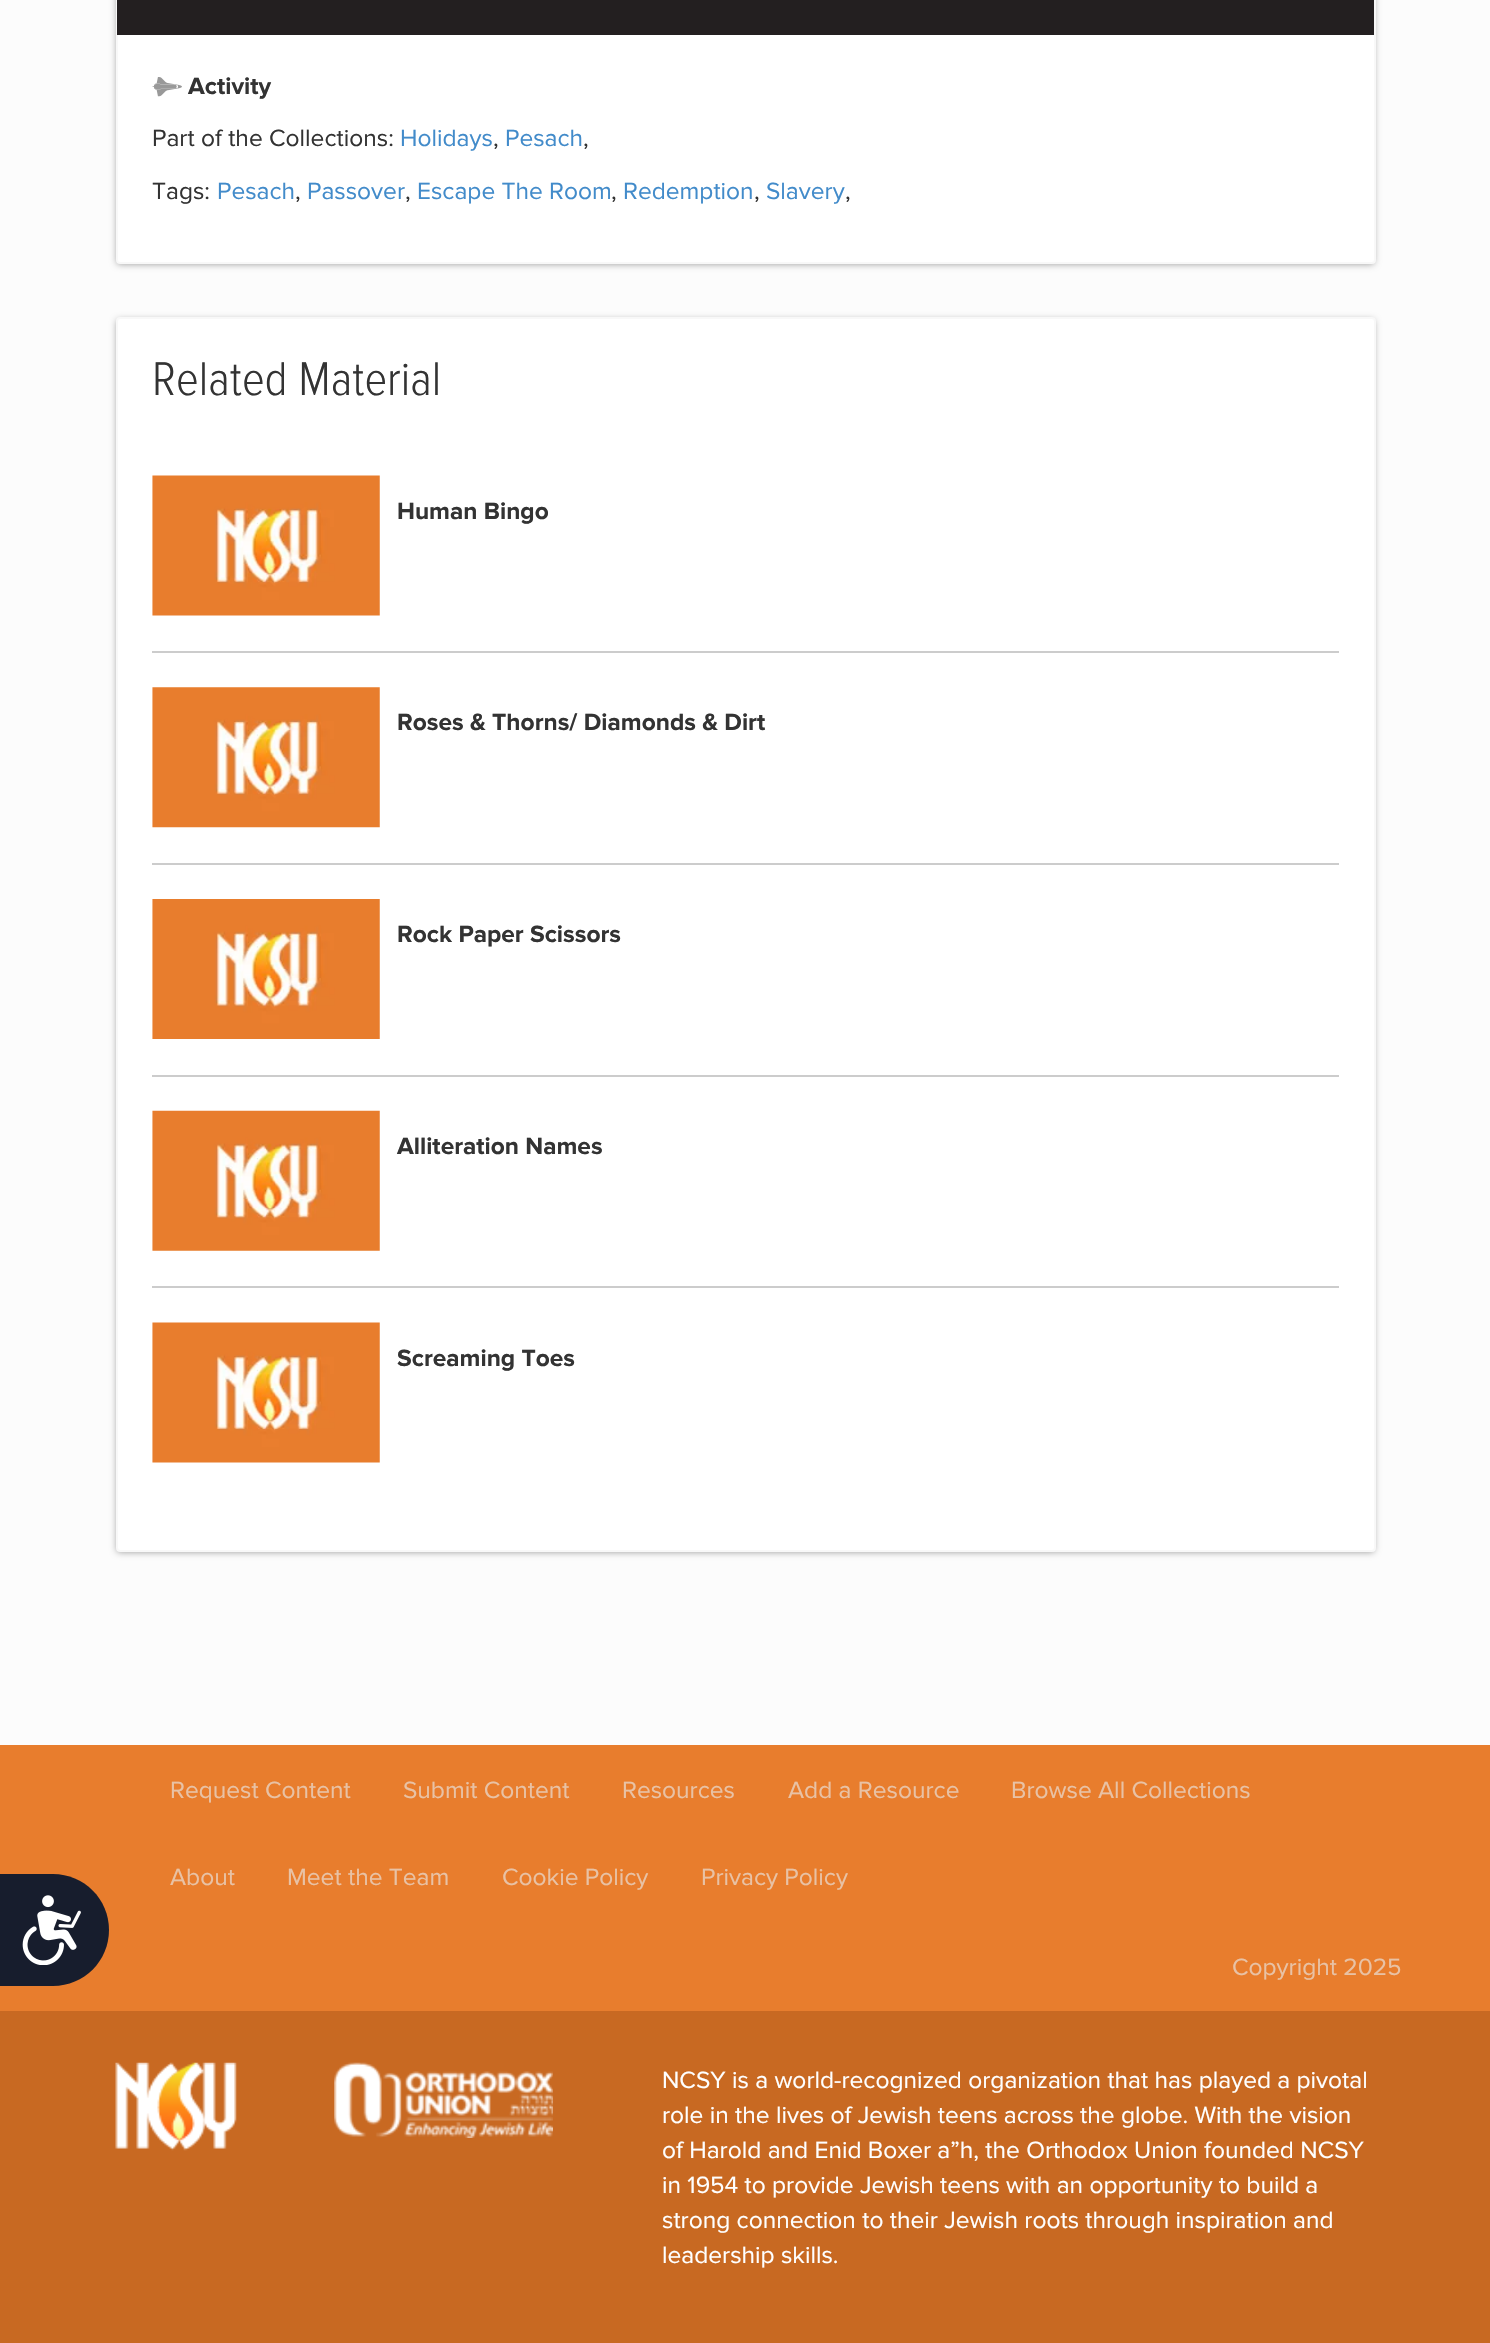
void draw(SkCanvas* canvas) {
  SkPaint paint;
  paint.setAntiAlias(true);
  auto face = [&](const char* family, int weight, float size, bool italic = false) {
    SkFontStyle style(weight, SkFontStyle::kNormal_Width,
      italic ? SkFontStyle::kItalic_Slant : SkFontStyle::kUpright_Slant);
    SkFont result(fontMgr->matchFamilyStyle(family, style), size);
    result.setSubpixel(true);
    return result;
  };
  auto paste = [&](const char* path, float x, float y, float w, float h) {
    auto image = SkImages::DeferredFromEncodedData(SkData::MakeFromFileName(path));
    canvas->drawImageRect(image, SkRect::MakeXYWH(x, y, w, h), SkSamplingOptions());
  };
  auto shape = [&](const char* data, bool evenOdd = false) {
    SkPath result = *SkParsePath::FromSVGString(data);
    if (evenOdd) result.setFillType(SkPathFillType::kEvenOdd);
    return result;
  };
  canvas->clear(0xfffcfcfc);
  paint.setColor(0x66000000);
  paint.setMaskFilter(SkMaskFilter::MakeBlur(kNormal_SkBlurStyle, 3.5f));
  canvas->drawRoundRect(SkRect::MakeXYWH(117, -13, 1257, 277), 2, 2, paint);
  paint.setMaskFilter(nullptr);
  paint.setColor(0xffffffff);
  canvas->drawRoundRect(SkRect::MakeXYWH(117, -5, 1258, 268), 3, 3, paint);
  paint.setStroke(true);
  paint.setStrokeWidth(2);
  paint.setColor(0xfff8f8f8);
  canvas->drawRoundRect(SkRect::MakeXYWH(117, -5, 1258, 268), 3, 3, paint);
  paint.setStroke(false);
  paint.setColor(0xff231f20);
  canvas->drawRect(SkRect::MakeXYWH(117, 0, 1257, 35), paint);
  paste("img/1.png", 152, 77, 30, 20);
  paint.setColor(0x66000000);
  paint.setMaskFilter(SkMaskFilter::MakeBlur(kNormal_SkBlurStyle, 3.5f));
  canvas->drawRoundRect(SkRect::MakeXYWH(117, 320, 1257, 1232), 2, 2, paint);
  paint.setMaskFilter(nullptr);
  paint.setColor(0xffffffff);
  canvas->drawRoundRect(SkRect::MakeXYWH(117, 318, 1258, 1233), 3, 3, paint);
  paint.setStroke(true);
  paint.setColor(0xfff8f8f8);
  canvas->drawRoundRect(SkRect::MakeXYWH(117, 318, 1258, 1233), 3, 3, paint);
  paint.setStroke(false);
  paint.setColor(0xffcccccc);
  canvas->drawRect(SkRect::MakeXYWH(152, 651, 1187, 2), paint);
  paste("img/2.png", 152, 475, 228, 141);
  canvas->drawRect(SkRect::MakeXYWH(152, 863, 1187, 2), paint);
  paste("img/3.png", 152, 687, 228, 141);
  canvas->drawRect(SkRect::MakeXYWH(152, 1075, 1187, 2), paint);
  paste("img/4.png", 152, 899, 228, 140);
  canvas->drawRect(SkRect::MakeXYWH(152, 1286, 1187, 2), paint);
  paste("img/5.png", 152, 1110, 228, 141);
  paste("img/2.png", 152, 1322, 228, 141);
  paint.setColor(0xffe87d2d);
  canvas->drawRect(SkRect::MakeXYWH(0, 1745, 1490, 266), paint);
  paint.setColor(0xff171d2d);
  canvas->drawPath(shape("M0 1874H53C84 1874 109 1899 109 1930C109 1961 84 1986 53 1986H0Z"), paint);
  paste("img/6.png", 22, 1895, 59, 70);
  paint.setColor(0xffc86922);
  canvas->drawRect(SkRect::MakeXYWH(0, 2011, 1490, 332), paint);
  paste("img/7.png", 115, 2062, 122, 89);
  paste("img/8.png", 334, 2062, 219, 76);
  auto f0 = face("Proxima Nova", 700, 24.5f);
  paint.setColor(0xff333333);
  canvas->drawString("Activity", 188, 94, f0, paint);
  auto f1 = face("Proxima Nova", 400, 24.5f);
  canvas->drawString("Part of the Collections:", 152, 146, f1, paint);
  paint.setColor(0xff428bca);
  canvas->drawString("Holidays", 400, 146, f1, paint);
  paint.setColor(0xff333333);
  canvas->drawString(",", 493, 146, f1, paint);
  paint.setColor(0xff428bca);
  canvas->drawString("Pesach", 505, 146, f1, paint);
  paint.setColor(0xff333333);
  canvas->drawString(",", 583, 146, f1, paint);
  canvas->drawString("Tags:", 152, 199, f1, paint);
  paint.setColor(0xff428bca);
  canvas->drawString("Pesach", 217, 199, f1, paint);
  paint.setColor(0xff333333);
  canvas->drawString(",", 295, 199, f1, paint);
  paint.setColor(0xff428bca);
  canvas->drawString("Passover", 307, 199, f1, paint);
  paint.setColor(0xff333333);
  canvas->drawString(",", 405, 199, f1, paint);
  paint.setColor(0xff428bca);
  canvas->drawString("Escape The Room", 417, 199, f1, paint);
  paint.setColor(0xff333333);
  canvas->drawString(",", 611, 199, f1, paint);
  paint.setColor(0xff428bca);
  canvas->drawString("Redemption", 623, 199, f1, paint);
  paint.setColor(0xff333333);
  canvas->drawString(",", 754, 199, f1, paint);
  paint.setColor(0xff428bca);
  canvas->drawString("Slavery", 766, 199, f1, paint);
  paint.setColor(0xff333333);
  canvas->drawString(",", 845, 199, f1, paint);
  auto f2 = face("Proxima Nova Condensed", 300, 49);
  canvas->drawString("Related Material", 152, 395, f2, paint);
  {
    const struct { const char* s; float x, y; } items[] = {
      {"Human Bingo", 397, 519},
      {"Roses & Thorns/ Diamonds & Dirt", 397, 730},
      {"Rock Paper Scissors", 397, 942},
      {"Alliteration Names", 397, 1154},
      {"Screaming Toes", 397, 1366},
    };
    for (auto [s, x, y] : items) {
      canvas->drawString(s, x, y, f0, paint);
    }
  }
  paint.setColor(0xffe8c2a5);
  {
    const struct { const char* s; float x, y; } items[] = {
      {"Request Content", 170, 1798},
      {"Submit Content", 403, 1798},
      {"Resources", 622, 1798},
      {"Add a Resource", 788, 1798},
      {"Browse All Collections", 1011, 1798},
      {"About", 170, 1885},
      {"Meet the Team", 287, 1885},
      {"Cookie Policy", 502, 1885},
      {"Privacy Policy", 701, 1885},
      {"Copyright 2025", 1232, 1975},
    };
    for (auto [s, x, y] : items) {
      canvas->drawString(s, x, y, f1, paint);
    }
  }
  paint.setColor(0xffffffff);
  {
    const struct { const char* s; float x, y; } items[] = {
      {"NCSY is a world-recognized organization that has played a pivotal", 662, 2088},
      {"role in the lives of Jewish teens across the globe. With the vision", 662, 2123},
      {"of Harold and Enid Boxer a”h, the Orthodox Union founded NCSY", 662, 2158},
      {"in 1954 to provide Jewish teens with an opportunity to build a", 662, 2193},
      {"strong connection to their Jewish roots through inspiration and", 662, 2228},
      {"leadership skills.", 662, 2263},
    };
    for (auto [s, x, y] : items) {
      canvas->drawString(s, x, y, f1, paint);
    }
  }
}
